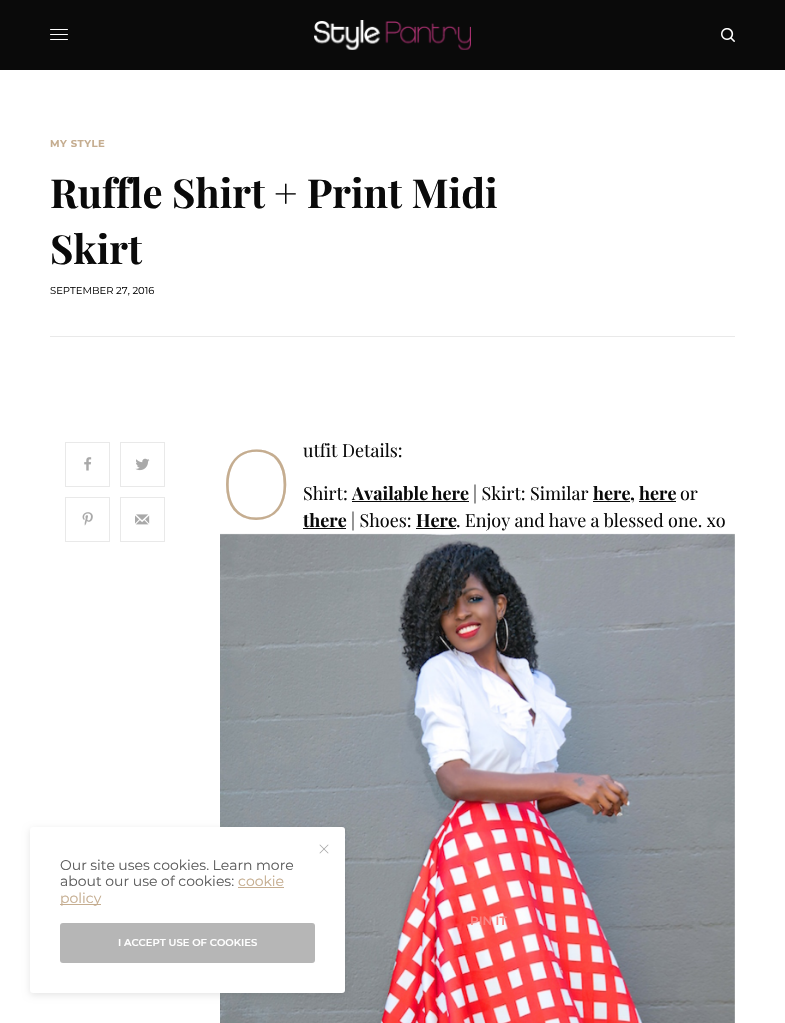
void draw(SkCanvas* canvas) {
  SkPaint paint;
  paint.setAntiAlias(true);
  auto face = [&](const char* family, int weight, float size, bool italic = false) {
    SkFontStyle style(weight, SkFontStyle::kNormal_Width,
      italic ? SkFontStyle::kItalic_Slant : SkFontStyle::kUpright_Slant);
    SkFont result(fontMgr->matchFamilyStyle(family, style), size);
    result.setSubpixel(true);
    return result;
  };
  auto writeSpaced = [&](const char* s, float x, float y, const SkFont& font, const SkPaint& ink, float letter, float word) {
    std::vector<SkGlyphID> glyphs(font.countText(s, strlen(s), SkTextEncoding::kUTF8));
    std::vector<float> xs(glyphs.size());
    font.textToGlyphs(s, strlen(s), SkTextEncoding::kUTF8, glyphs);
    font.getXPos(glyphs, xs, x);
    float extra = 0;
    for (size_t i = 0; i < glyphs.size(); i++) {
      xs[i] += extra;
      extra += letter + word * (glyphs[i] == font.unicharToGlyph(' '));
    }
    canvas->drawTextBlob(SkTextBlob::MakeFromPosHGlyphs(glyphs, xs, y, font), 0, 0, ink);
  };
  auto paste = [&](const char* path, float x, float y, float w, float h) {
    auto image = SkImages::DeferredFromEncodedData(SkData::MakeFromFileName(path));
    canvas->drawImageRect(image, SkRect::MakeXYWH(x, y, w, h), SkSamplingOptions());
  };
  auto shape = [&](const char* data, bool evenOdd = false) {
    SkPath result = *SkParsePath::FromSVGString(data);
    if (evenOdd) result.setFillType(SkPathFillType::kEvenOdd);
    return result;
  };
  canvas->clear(0xffffffff);
  paint.setColor(0xff0a0a0a);
  canvas->drawRect(SkRect::MakeXYWH(0, 0, 785, 70), paint);
  paint.setColor(0xffffffff);
  canvas->drawRoundRect(SkRect::MakeXYWH(50, 29, 18, 1), 0.5f, 0.5f, paint);
  canvas->drawRoundRect(SkRect::MakeXYWH(50, 34, 18, 1), 0.5f, 0.5f, paint);
  canvas->drawRoundRect(SkRect::MakeXYWH(50, 39, 18, 1), 0.5f, 0.5f, paint);
  paste("img/1.png", 314, 20, 157, 30);
  paste("img/2.png", 721, 28, 14, 14);
  paint.setColor(0xffe9e9e9);
  canvas->drawRect(SkRect::MakeXYWH(50, 336, 685, 1), paint);
  paint.setStroke(true);
  paint.setStrokeWidth(1);
  canvas->drawRect(SkRect::MakeXYWH(65.5f, 442.5f, 44, 44), paint);
  paste("img/3.png", 84, 457, 8, 14);
  canvas->drawRect(SkRect::MakeXYWH(120.5f, 442.5f, 44, 44), paint);
  paste("img/4.png", 135, 458, 15, 13);
  canvas->drawRect(SkRect::MakeXYWH(65.5f, 497.5f, 44, 44), paint);
  paste("img/5.png", 82, 512, 11, 14);
  canvas->drawRect(SkRect::MakeXYWH(120.5f, 497.5f, 44, 44), paint);
  paste("img/6.png", 135, 514, 15, 11);
  paint.setStroke(false);
  {
    const struct { float x, y, w, h; SkColor color; } items[] = {
      {352, 501, 117, 1, 0xff0a0a0a},
      {593, 501, 37, 1, 0xff0a0a0a},
      {639, 501, 37, 1, 0xff0a0a0a},
      {303, 528, 43, 1, 0xff0a0a0a},
      {416, 528, 40, 1, 0xff0a0a0a},
    };
    for (auto [x, y, w, h, color] : items) {
      paint.setColor(color);
      canvas->drawRect(SkRect::MakeXYWH(x, y, w, h), paint);
    }
  }
  paste("img/7.png", 220, 533, 515, 490);
  paint.setColor(0x1a000000);
  paint.setMaskFilter(SkMaskFilter::MakeBlur(kNormal_SkBlurStyle, 3.5f));
  canvas->drawRoundRect(SkRect::MakeXYWH(30, 829, 315, 166), 3, 3, paint);
  paint.setMaskFilter(nullptr);
  paint.setColor(0xffffffff);
  canvas->drawRoundRect(SkRect::MakeXYWH(30, 827, 315, 166), 3, 3, paint);
  paint.setColor(0xffa3a3a3);
  canvas->drawPath(shape("M320 844.5L328.5 853L328 853.5L319.5 845Z"), paint);
  canvas->drawPath(shape("M319.5 853L328 844.5L328.5 845L320 853.5Z"), paint);
  paint.setColor(0xffc5ad90);
  canvas->drawRect(SkRect::MakeXYWH(238, 887, 46, 1), paint);
  canvas->drawRect(SkRect::MakeXYWH(60, 904, 41, 1), paint);
  paint.setColor(0xffb6b6b6);
  canvas->drawRoundRect(SkRect::MakeXYWH(60, 923, 255, 40), 3, 3, paint);
  auto f0 = face("Montserrat", 700, 10);
  paint.setColor(0xffc5ad90);
  writeSpaced("MY STYLE", 50, 147, f0, paint, 0.5f, 0);
  auto f1 = face("Playfair Display", 700, 40);
  paint.setColor(0xff0a0a0a);
  canvas->drawString("Ruffle Shirt + Print Midi", 50, 208, f1, paint);
  canvas->drawString("Skirt", 50, 264, f1, paint);
  auto f2 = face("Montserrat", 400, 10);
  canvas->drawString("SEPTEMBER 27, 2016", 50, 294, f2, paint);
  auto f3 = face("Noto Sans", 100, 96);
  paint.setColor(0xffc5ad90);
  canvas->drawString("O", 220, 519, f3, paint);
  auto f4 = face("Playfair Display", 400, 18);
  paint.setColor(0xff0a0a0a);
  canvas->drawString("utfit Details:", 303, 457, f4, paint);
  canvas->drawString("Shirt:", 303, 500, f4, paint);
  auto f5 = face("Playfair Display", 700, 18);
  writeSpaced("Available here", 352, 500, f5, paint, 0, -1);
  canvas->drawString("| Skirt: Similar", 473, 500, f4, paint);
  canvas->drawString("here", 593, 500, f5, paint);
  canvas->drawString(", here", 630, 500, f5, paint);
  canvas->drawString("or", 680, 500, f4, paint);
  canvas->drawString("there", 303, 527, f5, paint);
  canvas->drawString("| Shoes:", 351, 527, f4, paint);
  canvas->drawString("Here", 416, 527, f5, paint);
  writeSpaced(". Enjoy and have a blessed one. xo", 456, 527, f4, paint, 0, -0.25f);
  auto f6 = face("Montserrat", 600, 12);
  paint.setColor(0xfff98483);
  canvas->drawString("PIN IT", 470, 925, f6, paint);
  auto f7 = face("Montserrat", 400, 14);
  paint.setColor(0xff5e5e5e);
  writeSpaced("Our site uses cookies. Learn more", 60, 870, f7, paint, 0, -0.25f);
  canvas->drawString("about our use of cookies:", 60, 886, f7, paint);
  paint.setColor(0xffc5ad90);
  canvas->drawString("cookie", 238, 886, f7, paint);
  canvas->drawString("policy", 60, 903, f7, paint);
  auto f8 = face("Montserrat", 600, 10);
  paint.setColor(0xffffffff);
  canvas->drawString("I ACCEPT USE OF COOKIES", 118, 946, f8, paint);
}
